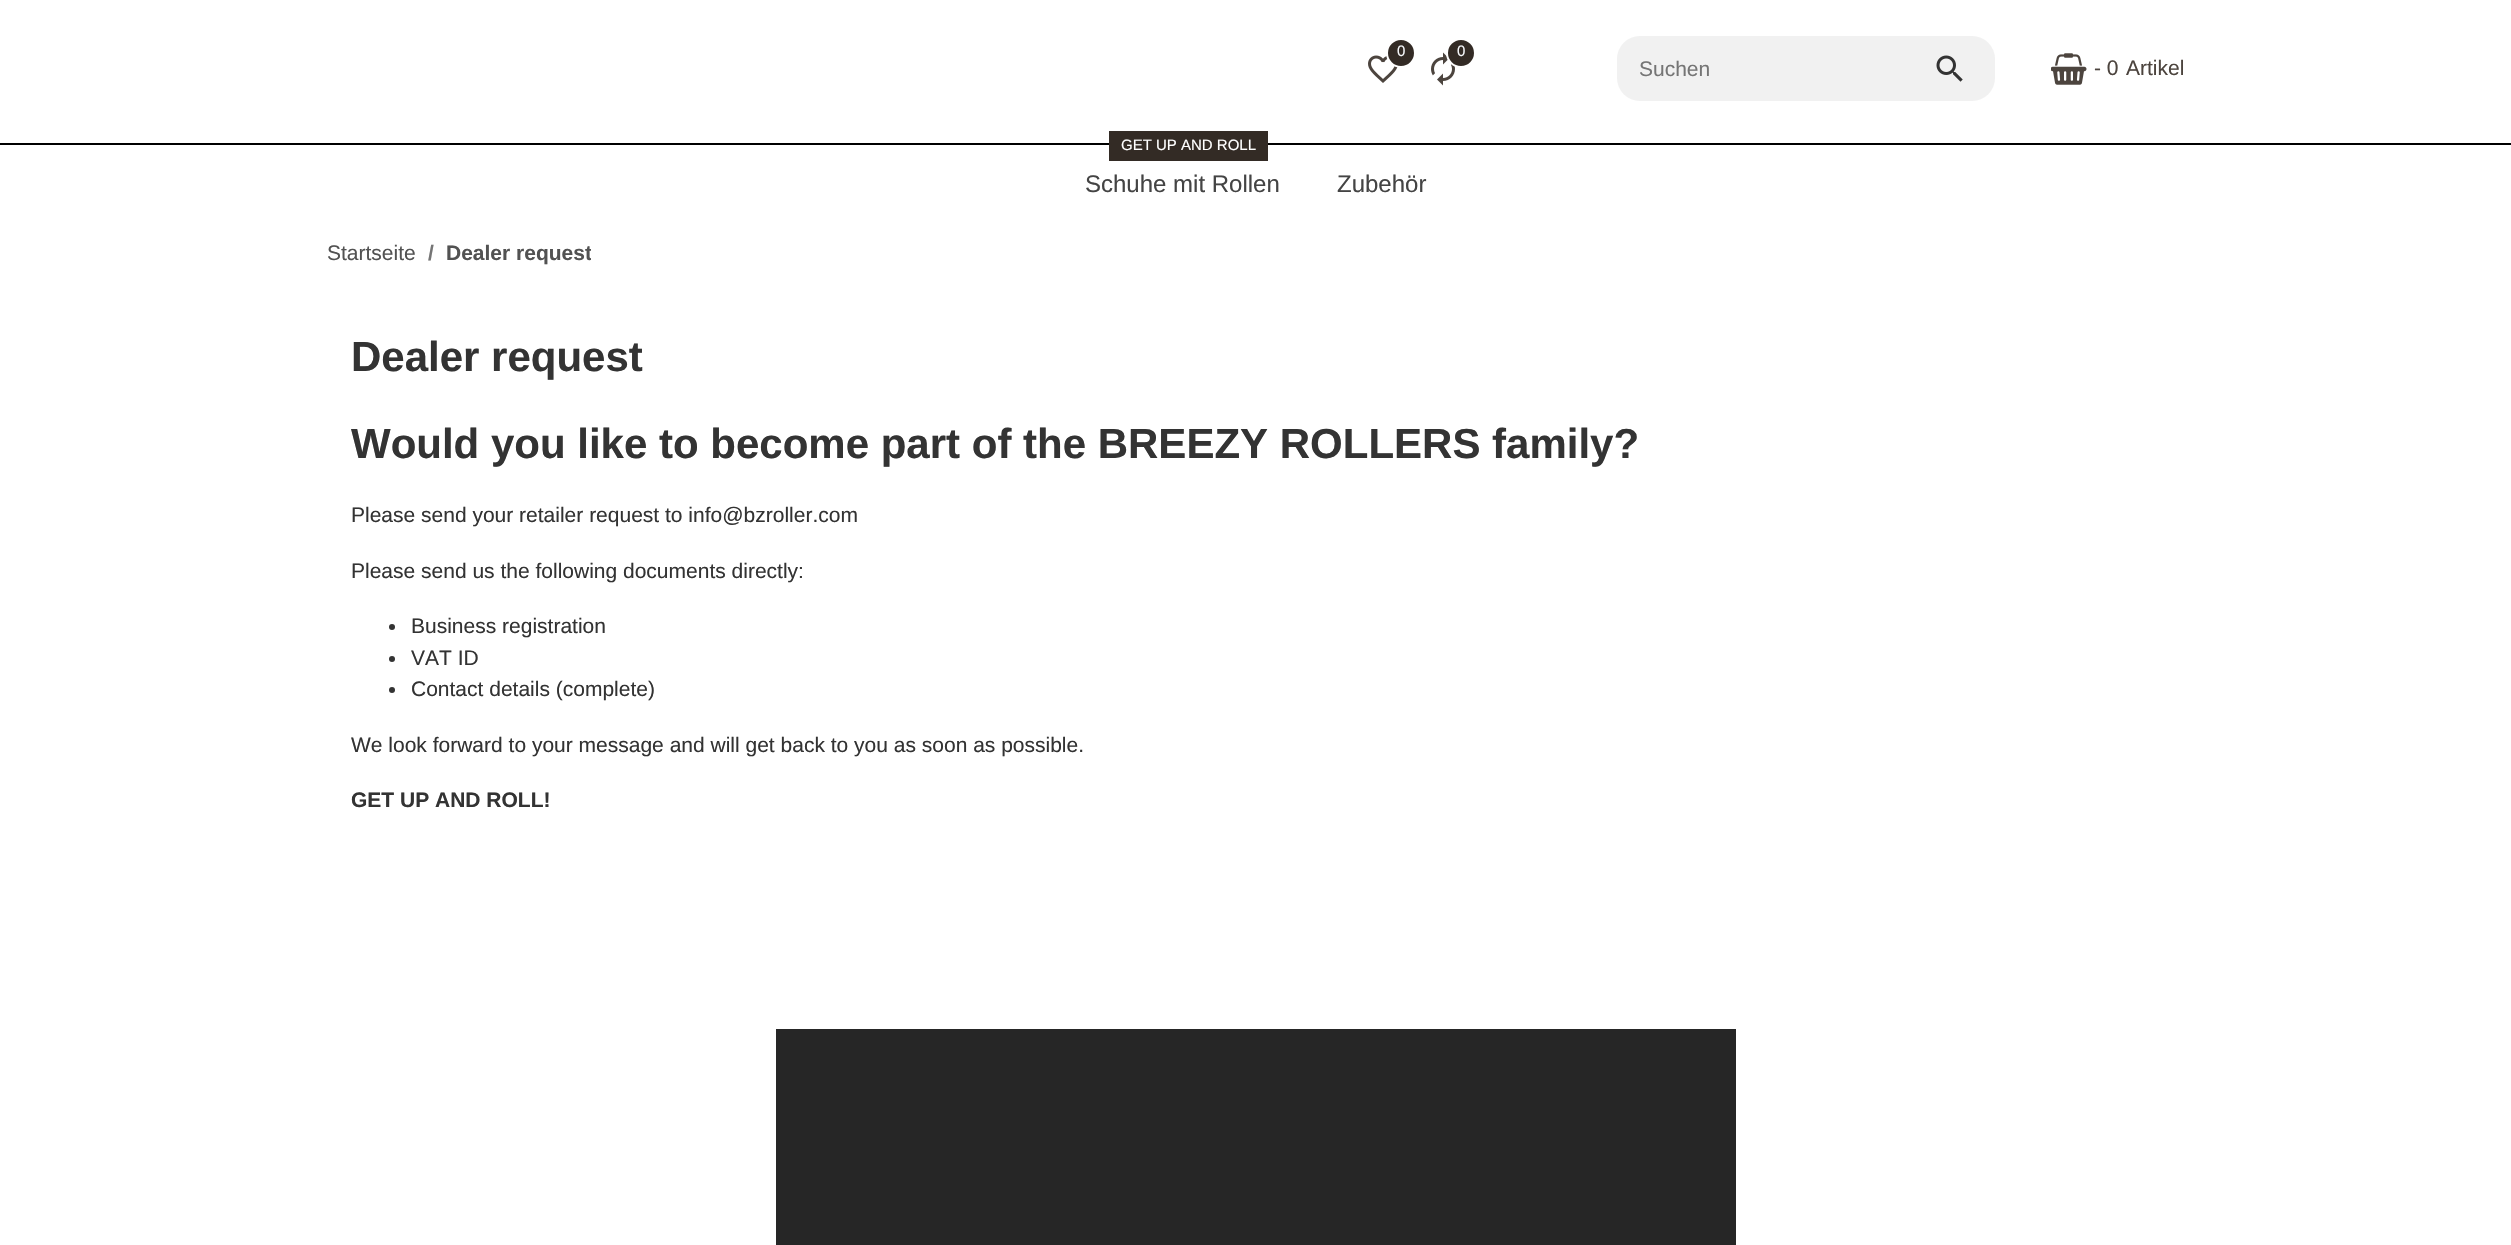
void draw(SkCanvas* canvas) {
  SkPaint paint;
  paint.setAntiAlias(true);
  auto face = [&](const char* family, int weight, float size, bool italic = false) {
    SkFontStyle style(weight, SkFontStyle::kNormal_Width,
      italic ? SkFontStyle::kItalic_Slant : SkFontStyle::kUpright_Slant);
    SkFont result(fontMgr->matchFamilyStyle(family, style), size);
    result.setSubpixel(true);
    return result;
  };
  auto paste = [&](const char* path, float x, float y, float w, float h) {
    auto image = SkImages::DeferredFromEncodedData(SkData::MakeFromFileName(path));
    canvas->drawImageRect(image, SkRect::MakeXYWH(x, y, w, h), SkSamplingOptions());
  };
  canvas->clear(0xffffffff);
  paste("img/1.png", 1368, 55, 30, 28);
  paint.setColor(0xff332b25);
  canvas->drawCircle(1401, 53, 14, paint);
  paint.setStroke(true);
  paint.setStrokeWidth(2);
  paint.setColor(0xffffffff);
  canvas->drawCircle(1401, 53, 14, paint);
  paste("img/2.png", 1431, 52, 24, 34);
  paint.setStroke(false);
  paint.setColor(0xff332b25);
  canvas->drawCircle(1461, 53, 14, paint);
  paint.setStroke(true);
  paint.setColor(0xffffffff);
  canvas->drawCircle(1461, 53, 14, paint);
  paint.setStroke(false);
  paint.setColor(0xfff1f1f1);
  canvas->drawRoundRect(SkRect::MakeXYWH(1617, 36, 378, 65), 23, 23, paint);
  paste("img/3.png", 1936, 55, 27, 27);
  paste("img/4.png", 2051, 53, 36, 32);
  paint.setColor(0xff000000);
  canvas->drawRect(SkRect::MakeXYWH(0, 143, 2511, 2), paint);
  paint.setColor(0xff332b25);
  canvas->drawRect(SkRect::MakeXYWH(1109, 131, 159, 30), paint);
  paint.setColor(0xff333333);
  canvas->drawCircle(392, 627, 3, paint);
  canvas->drawCircle(392, 659, 3, paint);
  canvas->drawCircle(392, 690, 3, paint);
  paint.setColor(0xff262626);
  canvas->drawRect(SkRect::MakeXYWH(776, 1029, 960, 216), paint);
  auto f0 = face("Liberation Sans", 400, 15);
  paint.setColor(0xfff5f7fa);
  canvas->drawString("0", 1397, 56, f0, paint);
  canvas->drawString("0", 1457, 56, f0, paint);
  auto f1 = face("Liberation Sans", 400, 21);
  paint.setColor(0xff757575);
  canvas->drawString("Suchen", 1639, 76, f1, paint);
  paint.setColor(0xff4c443e);
  canvas->drawString("- 0", 2094, 75, f1, paint);
  canvas->drawString("Artikel", 2126, 75, f1, paint);
  paint.setColor(0xffffffff);
  canvas->drawString("GET UP AND ROLL", 1121, 150, f0, paint);
  auto f2 = face("Liberation Sans", 400, 24);
  paint.setColor(0xff444444);
  canvas->drawString("Schuhe mit Rollen", 1085, 192, f2, paint);
  canvas->drawString("Zubehör", 1337, 192, f2, paint);
  paint.setColor(0xff525252);
  canvas->drawString("Startseite", 327, 260, f1, paint);
  auto f3 = face("Liberation Sans", 700, 21);
  paint.setColor(0xff757575);
  canvas->drawString("/", 428, 260, f3, paint);
  canvas->save();
  canvas->clipRect(SkRect::MakeXYWH(327, 237, 264, 32));
  paint.setColor(0xff525252);
  canvas->drawString("Dealer request", 446, 260, f3, paint);
  canvas->restore();
  auto f4 = face("Liberation Sans", 700, 42);
  paint.setColor(0xff333333);
  canvas->drawString("Dealer request", 351, 371, f4, paint);
  canvas->drawString("Would you like to become part of the BREEZY ROLLERS family?", 351, 458, f4, paint);
  {
    const struct { const char* s; float x, y; } items[] = {
      {"Please send your retailer request to info@bzroller.com", 351, 522},
      {"Please send us the following documents directly:", 351, 578},
      {"Business registration", 411, 633},
      {"VAT ID", 411, 665},
      {"Contact details (complete)", 411, 696},
      {"We look forward to your message and will get back to you as soon as possible.", 351, 752},
    };
    for (auto [s, x, y] : items) {
      canvas->drawString(s, x, y, f1, paint);
    }
  }
  canvas->drawString("GET UP AND ROLL!", 351, 807, f3, paint);
}
